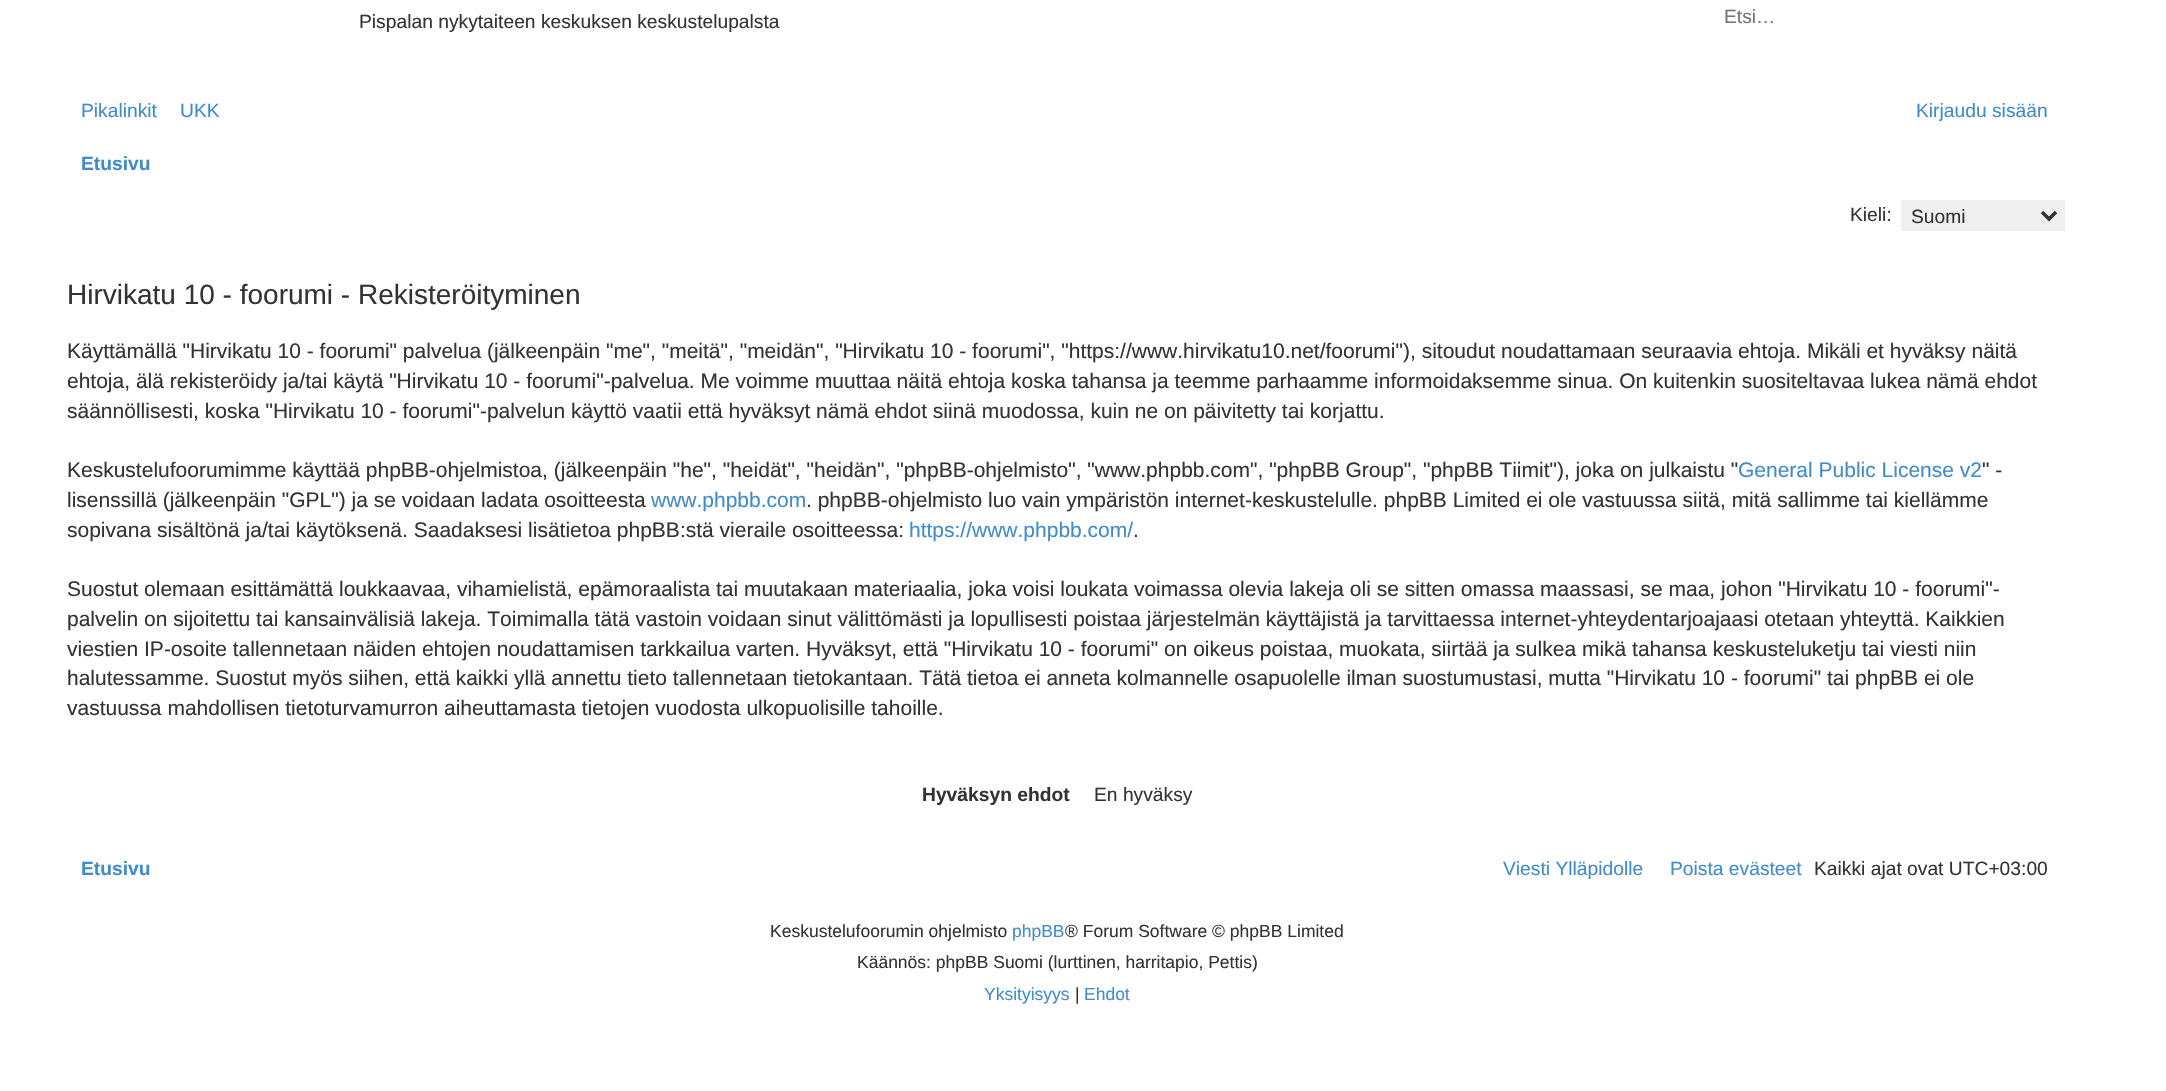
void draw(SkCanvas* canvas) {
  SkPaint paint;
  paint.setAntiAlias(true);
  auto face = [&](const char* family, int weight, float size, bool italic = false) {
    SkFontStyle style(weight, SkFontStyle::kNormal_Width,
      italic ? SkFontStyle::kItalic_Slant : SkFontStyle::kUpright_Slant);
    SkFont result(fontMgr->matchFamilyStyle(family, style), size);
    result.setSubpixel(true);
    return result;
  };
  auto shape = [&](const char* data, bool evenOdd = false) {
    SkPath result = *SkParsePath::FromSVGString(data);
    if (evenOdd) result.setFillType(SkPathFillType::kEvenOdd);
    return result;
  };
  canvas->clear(0xffffffff);
  paint.setColor(0xffefefef);
  canvas->drawRect(SkRect::MakeXYWH(1901, 200, 164, 31), paint);
  paint.setStroke(true);
  paint.setStrokeWidth(3.5f);
  paint.setColor(0xff333333);
  canvas->drawPath(shape("M2042 212L2049 219L2056 212"), paint);
  auto f0 = face("Liberation Sans", 400, 19.25f);
  paint.setStroke(false);
  canvas->drawString("Pispalan nykytaiteen keskuksen keskustelupalsta", 359, 28, f0, paint);
  paint.setColor(0xff757575);
  canvas->drawString("Etsi…", 1724, 23, f0, paint);
  paint.setColor(0xff428bca);
  {
    const struct { const char* s; float x, y; } items[] = {
      {"Pikalinkit", 81, 117},
      {"UKK", 180, 117},
      {"Kirjaudu sisään", 1916, 117},
    };
    for (auto [s, x, y] : items) {
      canvas->drawString(s, x, y, f0, paint);
    }
  }
  auto f1 = face("Liberation Sans", 700, 19.25f);
  canvas->drawString("Etusivu", 81, 170, f1, paint);
  paint.setColor(0xff333333);
  canvas->drawString("Kieli:", 1850, 221, f0, paint);
  canvas->drawString("Suomi", 1911, 223, f0, paint);
  auto f2 = face("Liberation Sans", 400, 28);
  canvas->drawString("Hirvikatu 10 - foorumi - Rekisteröityminen", 67, 304, f2, paint);
  auto f3 = face("Liberation Sans", 400, 21);
  {
    const struct { const char* s; float x, y; } items[] = {
      {"Käyttämällä \"Hirvikatu 10 - foorumi\" palvelua (jälkeenpäin \"me\", \"meitä\", \"meidän\", \"Hirvikatu 10 - foorumi\", \"https://www.hirvikatu10.net/foorumi\"), sitoudut noudattamaan seuraavia ehtoja. Mikäli et hyväksy näitä", 67, 358},
      {"ehtoja, älä rekisteröidy ja/tai käytä \"Hirvikatu 10 - foorumi\"-palvelua. Me voimme muuttaa näitä ehtoja koska tahansa ja teemme parhaamme informoidaksemme sinua. On kuitenkin suositeltavaa lukea nämä ehdot", 67, 388},
      {"säännöllisesti, koska \"Hirvikatu 10 - foorumi\"-palvelun käyttö vaatii että hyväksyt nämä ehdot siinä muodossa, kuin ne on päivitetty tai korjattu.", 67, 418},
      {"Keskustelufoorumimme käyttää phpBB-ohjelmistoa, (jälkeenpäin \"he\", \"heidät\", \"heidän\", \"phpBB-ohjelmisto\", \"www.phpbb.com\", \"phpBB Group\", \"phpBB Tiimit\"), joka on julkaistu \"", 67, 477},
    };
    for (auto [s, x, y] : items) {
      canvas->drawString(s, x, y, f3, paint);
    }
  }
  paint.setColor(0xff428bca);
  canvas->drawString("General Public License v2", 1738, 477, f3, paint);
  paint.setColor(0xff333333);
  canvas->drawString("\" -", 1982, 477, f3, paint);
  canvas->drawString("lisenssillä (jälkeenpäin \"GPL\") ja se voidaan ladata osoitteesta", 67, 507, f3, paint);
  paint.setColor(0xff428bca);
  canvas->drawString("www.phpbb.com", 651, 507, f3, paint);
  paint.setColor(0xff333333);
  canvas->drawString(". phpBB-ohjelmisto luo vain ympäristön internet-keskustelulle. phpBB Limited ei ole vastuussa siitä, mitä sallimme tai kiellämme", 806, 507, f3, paint);
  canvas->drawString("sopivana sisältönä ja/tai käytöksenä. Saadaksesi lisätietoa phpBB:stä vieraile osoitteessa:", 67, 537, f3, paint);
  paint.setColor(0xff428bca);
  canvas->drawString("https://www.phpbb.com/", 909, 537, f3, paint);
  paint.setColor(0xff333333);
  {
    const struct { const char* s; float x, y; } items[] = {
      {".", 1133, 537},
      {"Suostut olemaan esittämättä loukkaavaa, vihamielistä, epämoraalista tai muutakaan materiaalia, joka voisi loukata voimassa olevia lakeja oli se sitten omassa maassasi, se maa, johon \"Hirvikatu 10 - foorumi\"-", 67, 596},
      {"palvelin on sijoitettu tai kansainvälisiä lakeja. Toimimalla tätä vastoin voidaan sinut välittömästi ja lopullisesti poistaa järjestelmän käyttäjistä ja tarvittaessa internet-yhteydentarjoajaasi otetaan yhteyttä. Kaikkien", 67, 626},
      {"viestien IP-osoite tallennetaan näiden ehtojen noudattamisen tarkkailua varten. Hyväksyt, että \"Hirvikatu 10 - foorumi\" on oikeus poistaa, muokata, siirtää ja sulkea mikä tahansa keskusteluketju tai viesti niin", 67, 656},
      {"halutessamme. Suostut myös siihen, että kaikki yllä annettu tieto tallennetaan tietokantaan. Tätä tietoa ei anneta kolmannelle osapuolelle ilman suostumustasi, mutta \"Hirvikatu 10 - foorumi\" tai phpBB ei ole", 67, 685},
      {"vastuussa mahdollisen tietoturvamurron aiheuttamasta tietojen vuodosta ulkopuolisille tahoille.", 67, 715},
    };
    for (auto [s, x, y] : items) {
      canvas->drawString(s, x, y, f3, paint);
    }
  }
  canvas->drawString("Hyväksyn ehdot", 922, 801, f1, paint);
  canvas->drawString("En hyväksy", 1094, 801, f0, paint);
  paint.setColor(0xff428bca);
  canvas->drawString("Etusivu", 81, 875, f1, paint);
  canvas->drawString("Viesti Ylläpidolle", 1503, 875, f0, paint);
  canvas->drawString("Poista evästeet", 1670, 875, f0, paint);
  paint.setColor(0xff333333);
  canvas->drawString("Kaikki ajat ovat UTC+03:00", 1814, 875, f0, paint);
  auto f4 = face("Liberation Sans", 400, 17.5f);
  canvas->drawString("Keskustelufoorumin ohjelmisto", 770, 937, f4, paint);
  paint.setColor(0xff428bca);
  canvas->drawString("phpBB", 1012, 937, f4, paint);
  paint.setColor(0xff333333);
  canvas->drawString("® Forum Software © phpBB Limited", 1065, 937, f4, paint);
  canvas->drawString("Käännös: phpBB Suomi (lurttinen, harritapio, Pettis)", 857, 968, f4, paint);
  paint.setColor(0xff428bca);
  canvas->drawString("Yksityisyys", 984, 1000, f4, paint);
  paint.setColor(0xff333333);
  canvas->drawString("|", 1075, 1000, f4, paint);
  paint.setColor(0xff428bca);
  canvas->drawString("Ehdot", 1084, 1000, f4, paint);
}
